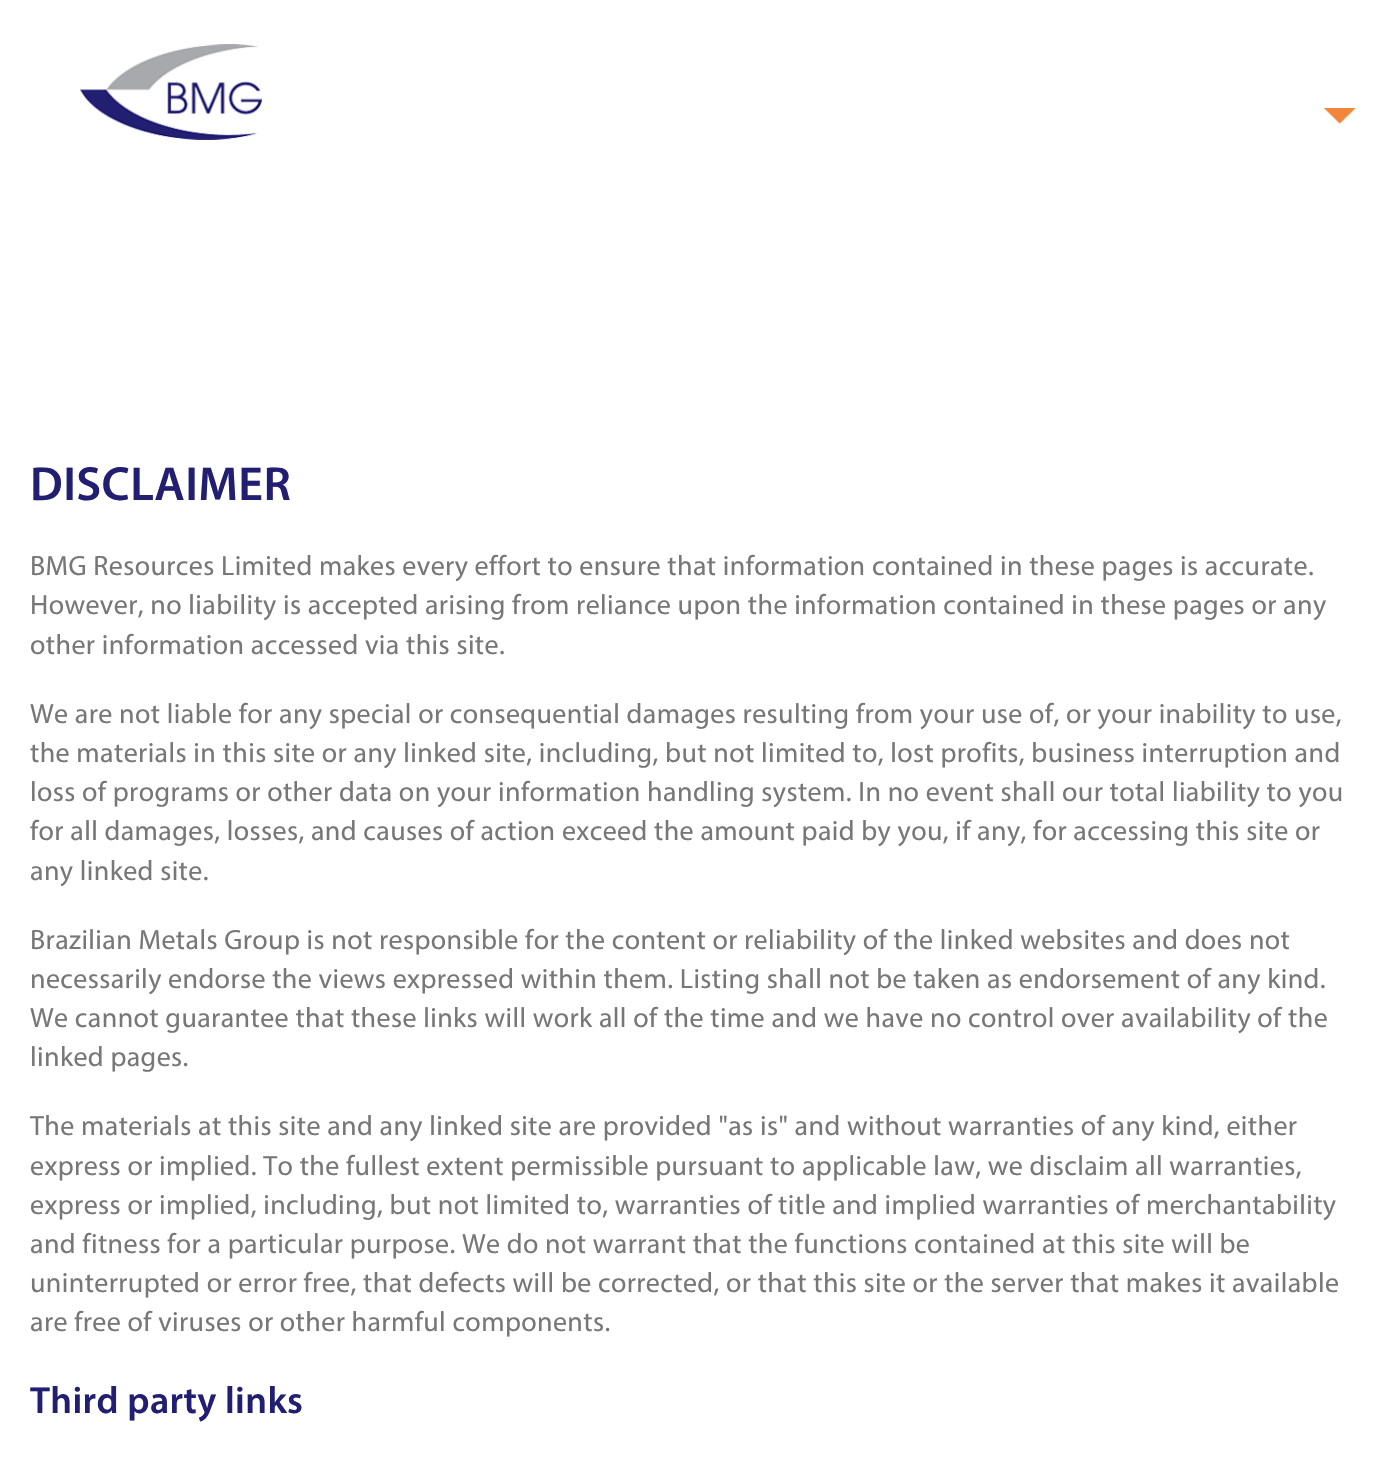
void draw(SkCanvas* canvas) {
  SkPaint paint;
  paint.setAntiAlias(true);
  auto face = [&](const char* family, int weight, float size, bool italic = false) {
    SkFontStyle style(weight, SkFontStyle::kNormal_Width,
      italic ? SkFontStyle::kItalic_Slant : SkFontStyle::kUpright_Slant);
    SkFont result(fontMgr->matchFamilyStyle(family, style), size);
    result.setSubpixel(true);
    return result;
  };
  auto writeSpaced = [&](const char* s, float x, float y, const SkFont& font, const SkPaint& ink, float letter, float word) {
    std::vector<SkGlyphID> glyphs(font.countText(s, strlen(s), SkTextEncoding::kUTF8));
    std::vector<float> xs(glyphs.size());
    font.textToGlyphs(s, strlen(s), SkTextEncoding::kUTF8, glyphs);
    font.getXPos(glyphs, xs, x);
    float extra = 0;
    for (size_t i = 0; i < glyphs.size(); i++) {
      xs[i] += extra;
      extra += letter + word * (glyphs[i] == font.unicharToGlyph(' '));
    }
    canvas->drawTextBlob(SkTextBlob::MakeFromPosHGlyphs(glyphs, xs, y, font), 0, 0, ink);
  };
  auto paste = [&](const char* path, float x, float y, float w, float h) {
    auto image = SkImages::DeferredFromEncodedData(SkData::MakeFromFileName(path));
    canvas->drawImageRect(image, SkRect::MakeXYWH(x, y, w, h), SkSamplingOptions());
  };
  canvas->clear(0xffffffff);
  paste("img/1.png", 80, 44, 182, 96);
  paste("img/2.png", 1324, 108, 32, 16);
  auto f0 = face("Myriad", 600, 48);
  paint.setColor(0xff221f72);
  writeSpaced("DISCLAIMER", 30, 500, f0, paint, 0.4f, 0);
  auto f1 = face("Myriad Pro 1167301", 400, 28);
  paint.setColor(0xff777777);
  {
    const struct { const char* s; float x, y; } items[] = {
      {"BMG Resources Limited makes every effort to ensure that information contained in these pages is accurate.", 30, 575},
      {"However, no liability is accepted arising from reliance upon the information contained in these pages or any", 30, 614},
      {"other information accessed via this site.", 30, 654},
      {"We are not liable for any special or consequential damages resulting from your use of, or your inability to use,", 30, 723},
      {"the materials in this site or any linked site, including, but not limited to, lost profits, business interruption and", 30, 762},
      {"loss of programs or other data on your information handling system. In no event shall our total liability to you", 30, 801},
      {"for all damages, losses, and causes of action exceed the amount paid by you, if any, for accessing this site or", 30, 840},
      {"any linked site.", 30, 880},
      {"Brazilian Metals Group is not responsible for the content or reliability of the linked websites and does not", 30, 949},
      {"necessarily endorse the views expressed within them. Listing shall not be taken as endorsement of any kind.", 30, 988},
      {"We cannot guarantee that these links will work all of the time and we have no control over availability of the", 30, 1027},
      {"linked pages.", 30, 1066},
      {"The materials at this site and any linked site are provided \"as is\" and without warranties of any kind, either", 30, 1135},
      {"express or implied. To the fullest extent permissible pursuant to applicable law, we disclaim all warranties,", 30, 1175},
      {"express or implied, including, but not limited to, warranties of title and implied warranties of merchantability", 30, 1214},
      {"and fitness for a particular purpose. We do not warrant that the functions contained at this site will be", 30, 1253},
      {"uninterrupted or error free, that defects will be corrected, or that this site or the server that makes it available", 30, 1292},
      {"are free of viruses or other harmful components.", 30, 1331},
    };
    for (auto [s, x, y] : items) {
      writeSpaced(s, x, y, f1, paint, 0.4f, 0);
    }
  }
  auto f2 = face("Myriad", 600, 38);
  paint.setColor(0xff221f72);
  writeSpaced("Third party links", 30, 1413, f2, paint, 0.4f, 0);
}
